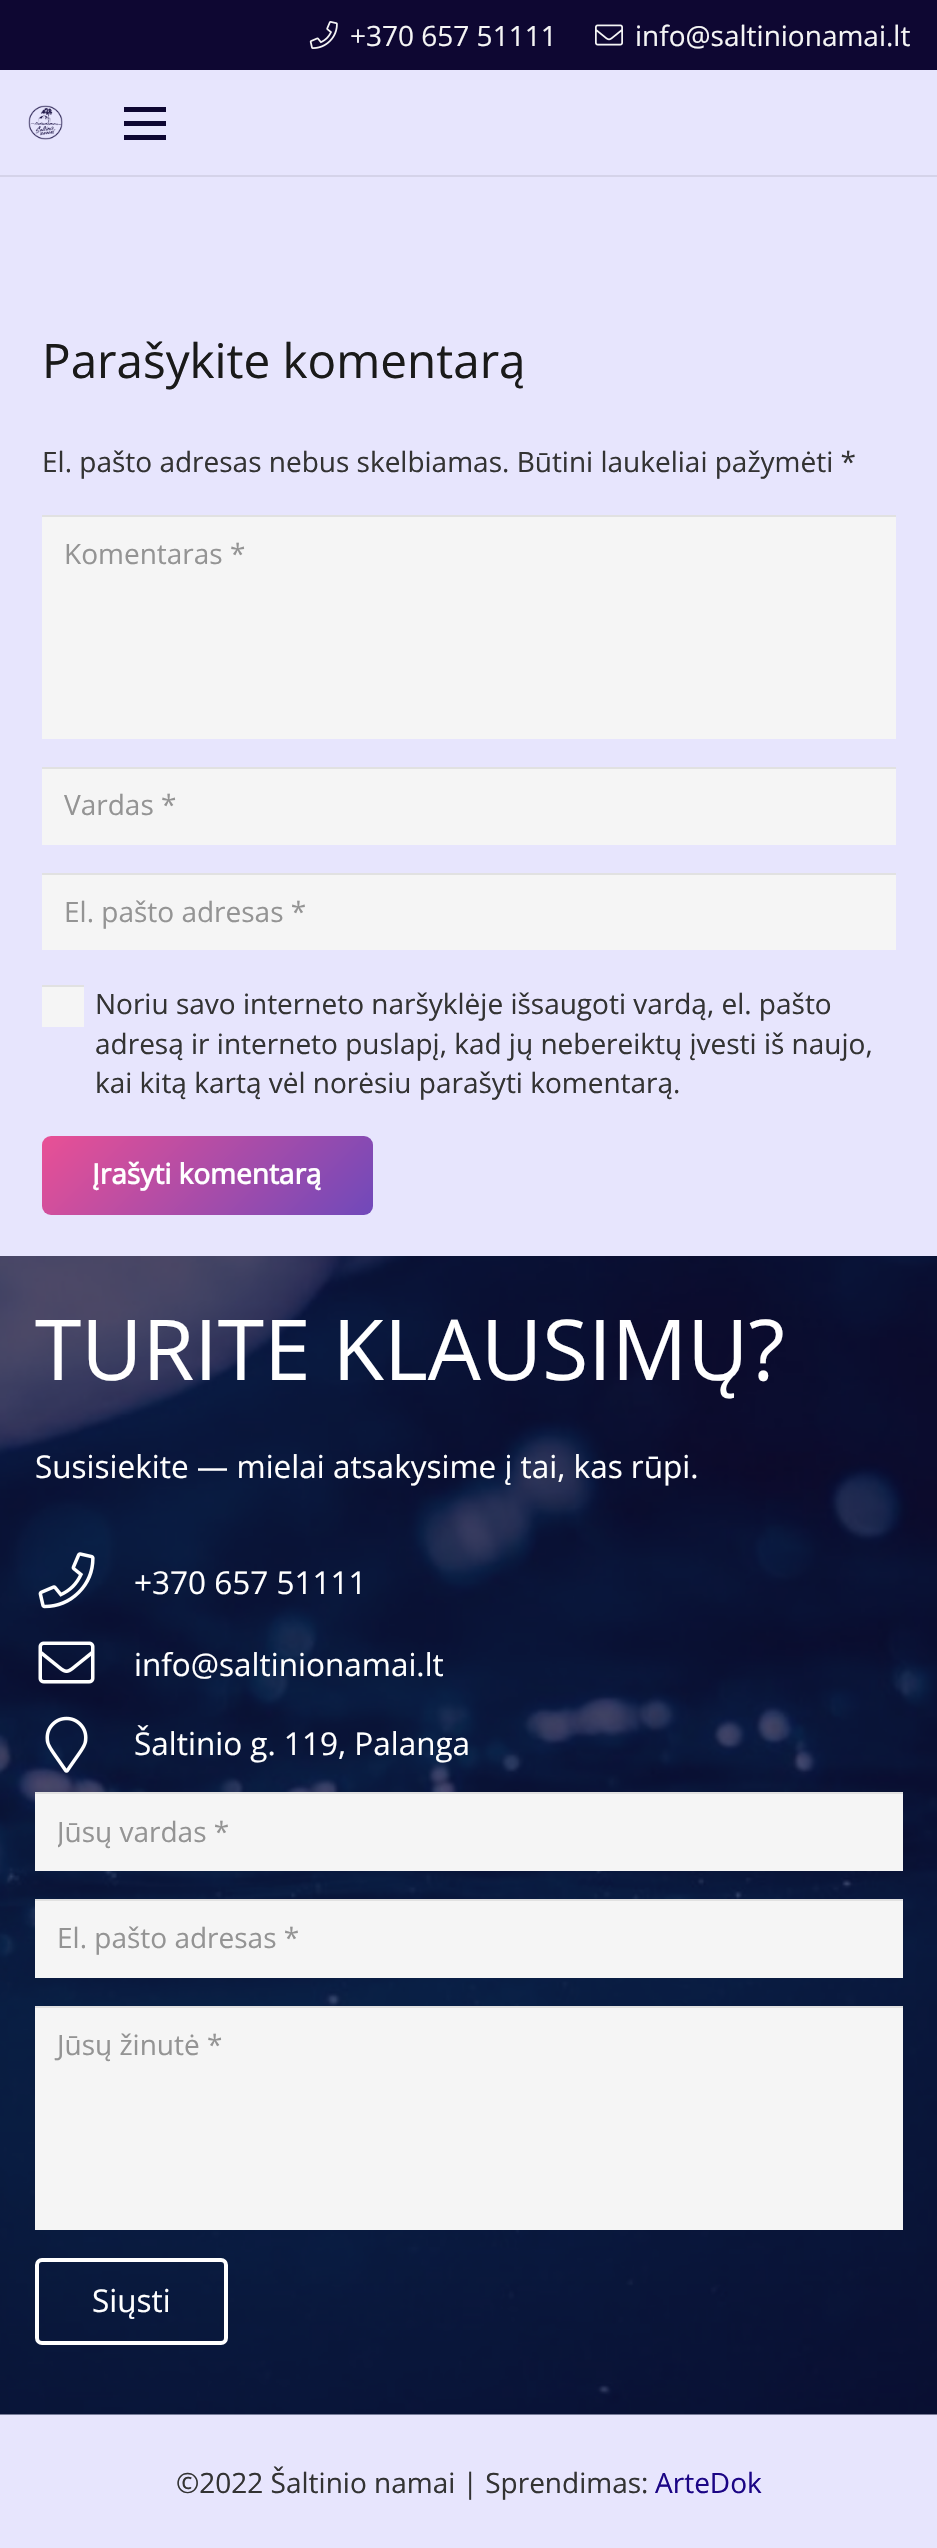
void draw(SkCanvas* canvas) {
  SkPaint paint;
  paint.setAntiAlias(true);
  auto face = [&](const char* family, int weight, float size, bool italic = false) {
    SkFontStyle style(weight, SkFontStyle::kNormal_Width,
      italic ? SkFontStyle::kItalic_Slant : SkFontStyle::kUpright_Slant);
    SkFont result(fontMgr->matchFamilyStyle(family, style), size);
    result.setSubpixel(true);
    return result;
  };
  auto paste = [&](const char* path, float x, float y, float w, float h) {
    auto image = SkImages::DeferredFromEncodedData(SkData::MakeFromFileName(path));
    canvas->drawImageRect(image, SkRect::MakeXYWH(x, y, w, h), SkSamplingOptions());
  };
  canvas->clear(0xffe7e5fd);
  paint.setColor(0xff0e0732);
  canvas->drawRect(SkRect::MakeXYWH(0, 0, 937, 70), paint);
  paste("img/1.png", 309, 21, 29, 28);
  paste("img/2.png", 595, 24, 28, 22);
  paint.setColor(0xffd5d3e9);
  canvas->drawRect(SkRect::MakeXYWH(0, 175, 937, 2), paint);
  paste("img/3.png", 28, 105, 35, 35);
  {
    const struct { float x, y, w, h; SkColor color; } items[] = {
      {124, 121, 42, 5, 0xff0e0732},
      {124, 107, 42, 5, 0xff0e0732},
      {124, 135, 42, 5, 0xff0e0732},
      {42, 517, 854, 222, 0xfff5f5f5},
      {42, 515, 854, 2, 0xffe1e1e1},
      {42, 769, 854, 76, 0xfff5f5f5},
      {42, 767, 854, 2, 0xffe1e1e1},
      {42, 875, 854, 75, 0xfff5f5f5},
      {42, 873, 854, 2, 0xffe1e1e1},
      {42, 987, 42, 40, 0xfff5f5f5},
      {42, 985, 42, 2, 0xffe1e1e1},
    };
    for (auto [x, y, w, h, color] : items) {
      paint.setColor(color);
      canvas->drawRect(SkRect::MakeXYWH(x, y, w, h), paint);
    }
  }
  {
    const SkColor colors[] = {0xffe95095, 0xff7049ba};
    const float stops[] = {0, 1};
    const SkPoint ends[] = {{105, 1073}, {310, 1278}};
    paint.setShader(SkGradientShader::MakeLinear(ends, colors, stops, 2, SkTileMode::kClamp));
    paint.setAlpha(255);
  }
  canvas->drawRoundRect(SkRect::MakeXYWH(42, 1136, 331, 79), 9, 9, paint);
  paste("img/4.png", 0, 1256, 937, 1159);
  paste("img/5.png", 38, 1552, 57, 57);
  paste("img/6.png", 38, 1641, 57, 43);
  paste("img/7.png", 45, 1716, 43, 57);
  paint.setShader(nullptr);
  {
    const struct { float x, y, w, h; SkColor color; } items[] = {
      {35, 1794, 868, 77, 0xfff5f5f5},
      {35, 1792, 868, 2, 0xffe1e1e1},
      {35, 1901, 868, 77, 0xfff5f5f5},
      {35, 1899, 868, 2, 0xffe1e1e1},
      {35, 2008, 868, 222, 0xfff5f5f5},
      {35, 2006, 868, 2, 0xffe1e1e1},
    };
    for (auto [x, y, w, h, color] : items) {
      paint.setColor(color);
      canvas->drawRect(SkRect::MakeXYWH(x, y, w, h), paint);
    }
  }
  paint.setStroke(true);
  paint.setStrokeWidth(4);
  paint.setColor(0xffffffff);
  canvas->drawRoundRect(SkRect::MakeXYWH(37, 2260, 189, 83), 5, 5, paint);
  auto f0 = face("Open Sans", 400, 28);
  paint.setStroke(false);
  paint.setColor(0xfff5f5f5);
  canvas->drawString("+370 657 51111", 350, 46, f0, paint);
  canvas->drawString("info@saltinionamai.lt", 635, 46, f0, paint);
  auto f1 = face("Open Sans", 400, 47.6f);
  paint.setColor(0xff1a1a1a);
  canvas->drawString("Parašykite komentarą", 42, 378, f1, paint);
  paint.setColor(0xff333333);
  canvas->drawString("El. pašto adresas nebus skelbiamas. Būtini laukeliai pažymėti *", 42, 472, f0, paint);
  paint.setColor(0xff949494);
  {
    const struct { const char* s; float x, y; } items[] = {
      {"Komentaras *", 64, 564},
      {"Vardas *", 64, 815},
      {"El. pašto adresas *", 64, 922},
    };
    for (auto [s, x, y] : items) {
      canvas->drawString(s, x, y, f0, paint);
    }
  }
  paint.setColor(0xff333333);
  {
    const struct { const char* s; float x, y; } items[] = {
      {"Noriu savo interneto naršyklėje išsaugoti vardą, el. pašto", 95, 1014},
      {"adresą ir interneto puslapį, kad jų nebereiktų įvesti iš naujo,", 95, 1054},
      {"kai kitą kartą vėl norėsiu parašyti komentarą.", 95, 1093},
    };
    for (auto [s, x, y] : items) {
      canvas->drawString(s, x, y, f0, paint);
    }
  }
  auto f2 = face("Open Sans", 700, 28);
  paint.setColor(0xffffffff);
  canvas->drawString("Įrašyti komentarą", 92, 1184, f2, paint);
  auto f3 = face("Open Sans", 400, 84);
  canvas->drawString("TURITE KLAUSIMŲ?", 35, 1380, f3, paint);
  auto f4 = face("Open Sans", 400, 31.5f);
  {
    const struct { const char* s; float x, y; } items[] = {
      {"Susisiekite — mielai atsakysime į tai, kas rūpi.", 35, 1478},
      {"+370 657 51111", 134, 1594},
      {"info@saltinionamai.lt", 134, 1676},
      {"Šaltinio g. 119, Palanga", 134, 1755},
    };
    for (auto [s, x, y] : items) {
      canvas->drawString(s, x, y, f4, paint);
    }
  }
  canvas->save();
  canvas->clipRect(SkRect::MakeXYWH(58, 1811, 822, 39));
  paint.setColor(0xff949494);
  canvas->drawString("Jūsų vardas *", 57, 1842, f0, paint);
  canvas->restore();
  canvas->drawString("El. pašto adresas *", 57, 1948, f0, paint);
  canvas->drawString("Jūsų žinutė *", 57, 2055, f0, paint);
  paint.setColor(0xffffffff);
  canvas->drawString("Siųsti", 92, 2312, f4, paint);
  paint.setColor(0xff333333);
  canvas->drawString("©2022 Šaltinio namai | Sprendimas:", 176, 2493, f0, paint);
  paint.setColor(0xff1b0585);
  canvas->drawString("ArteDok", 655, 2493, f0, paint);
}
